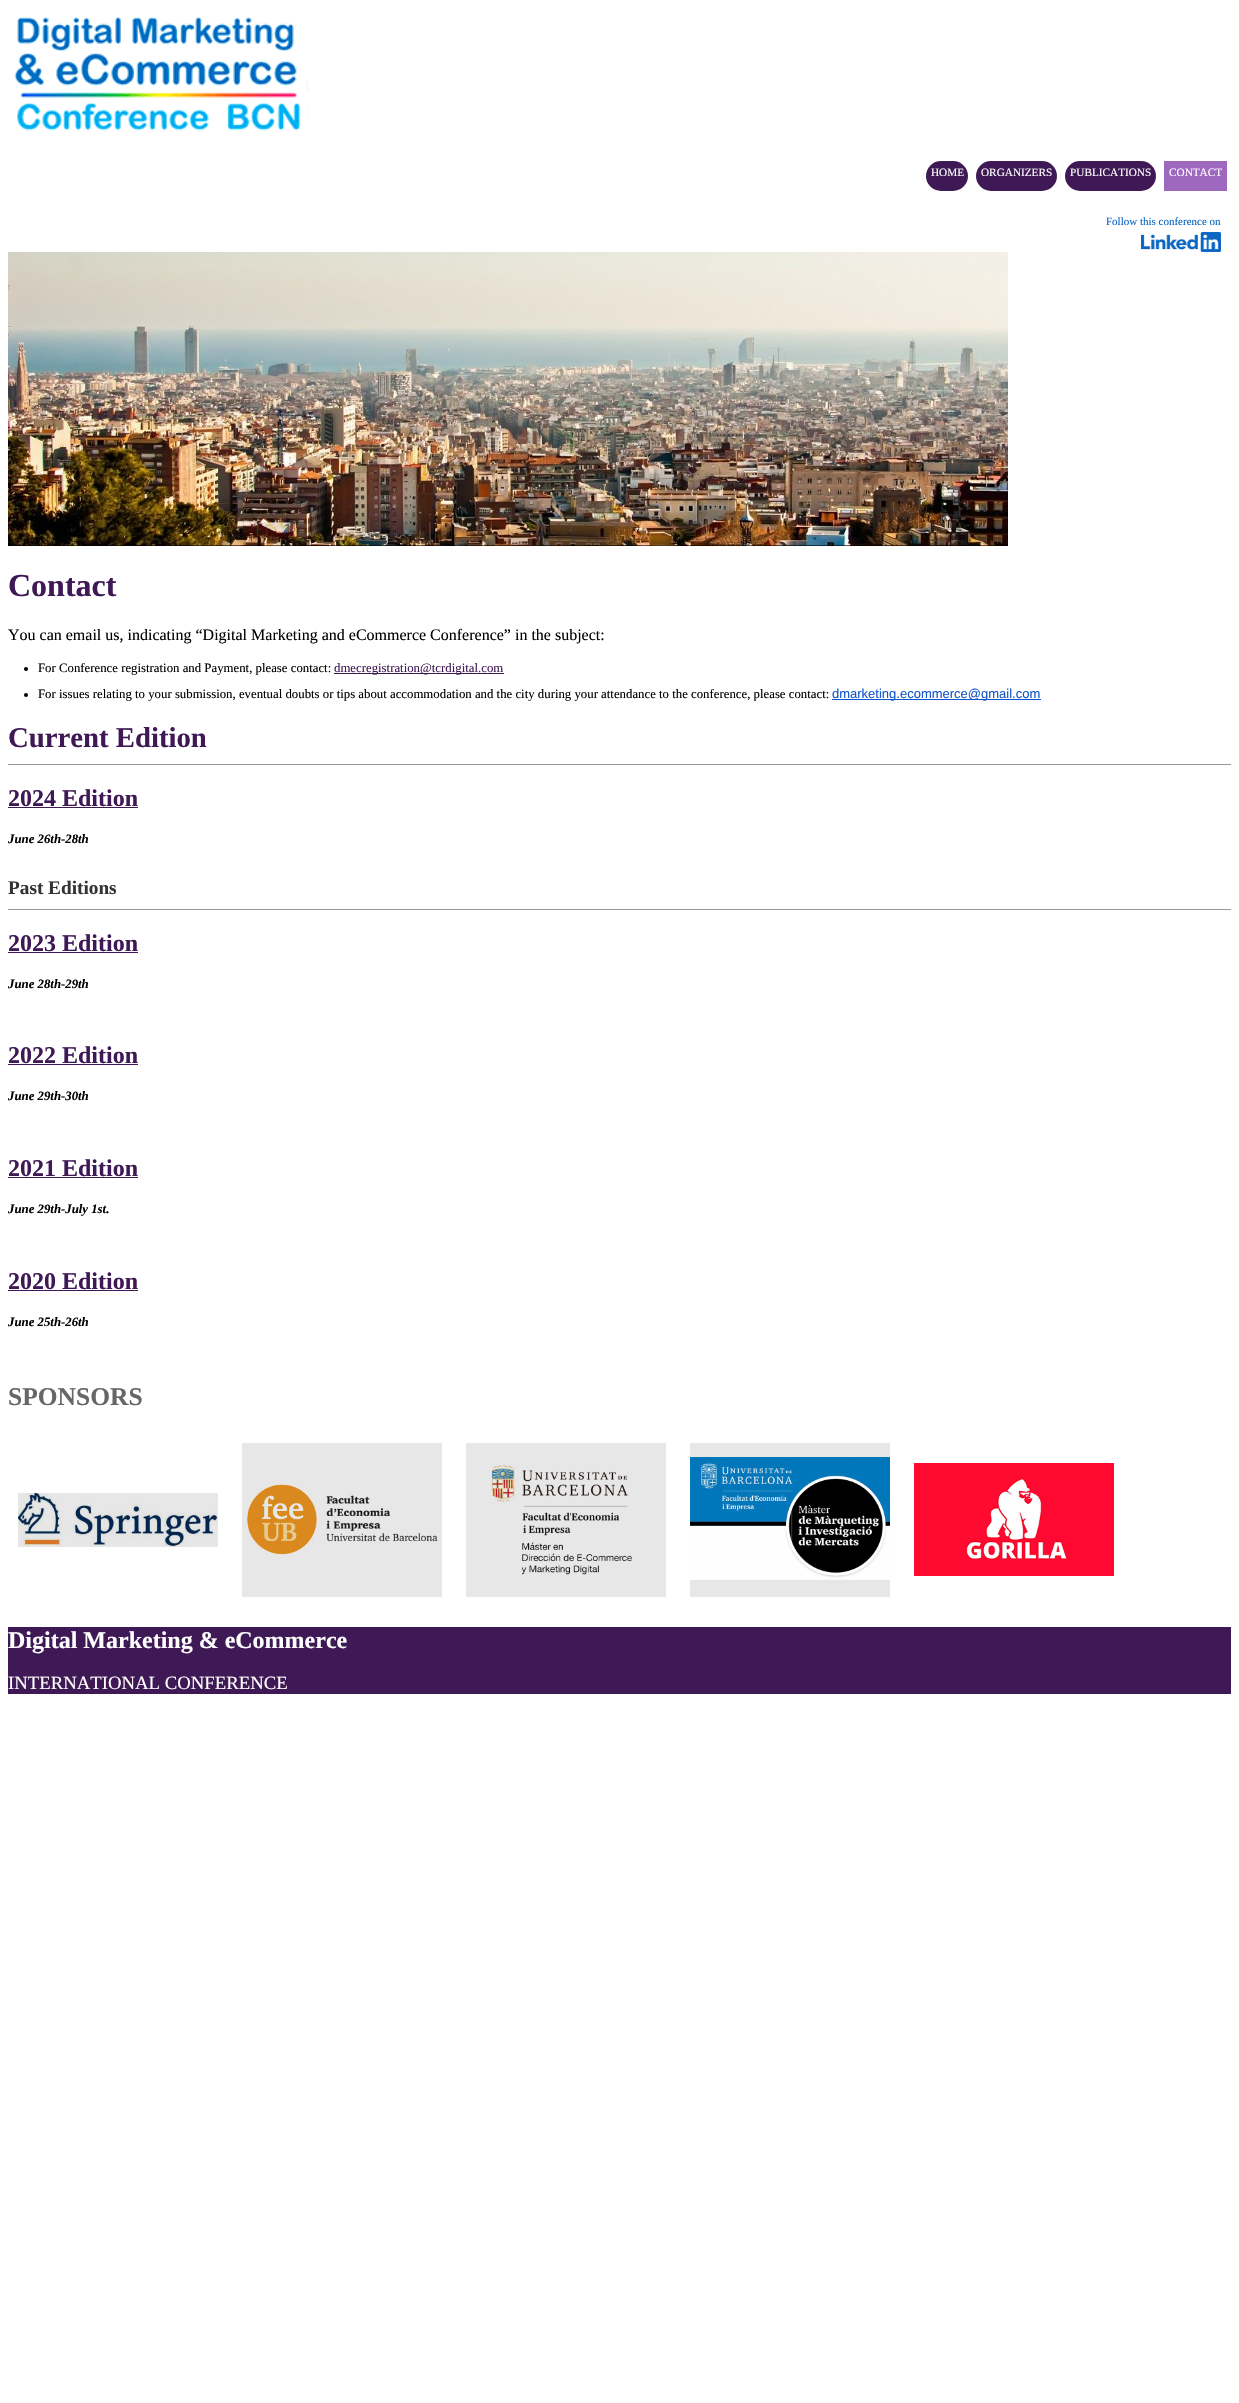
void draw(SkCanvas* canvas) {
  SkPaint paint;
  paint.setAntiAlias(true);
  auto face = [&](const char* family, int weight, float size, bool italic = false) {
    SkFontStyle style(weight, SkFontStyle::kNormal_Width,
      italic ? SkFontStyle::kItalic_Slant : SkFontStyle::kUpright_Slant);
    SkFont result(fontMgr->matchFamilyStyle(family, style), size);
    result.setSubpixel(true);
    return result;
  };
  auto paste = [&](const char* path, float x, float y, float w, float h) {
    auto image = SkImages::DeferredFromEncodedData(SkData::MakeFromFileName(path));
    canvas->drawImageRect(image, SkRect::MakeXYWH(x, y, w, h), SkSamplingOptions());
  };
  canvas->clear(0xffffffff);
  paste("img/1.png", 14, 17, 294, 114);
  paint.setColor(0xff3f1955);
  canvas->drawRoundRect(SkRect::MakeXYWH(926, 161, 42, 30), 15, 15, paint);
  canvas->drawRoundRect(SkRect::MakeXYWH(976, 161, 81, 30), 15, 15, paint);
  canvas->drawRoundRect(SkRect::MakeXYWH(1065, 161, 91, 30), 15, 15, paint);
  paint.setColor(0xff9f68bf);
  canvas->drawRect(SkRect::MakeXYWH(1164, 161, 63, 30), paint);
  paste("img/2.png", 1141, 232, 80, 20);
  paste("img/3.png", 8, 252, 1000, 294);
  paint.setColor(0xff000000);
  canvas->drawCircle(26, 669, 2, paint);
  paint.setColor(0xff3f1955);
  canvas->drawRect(SkRect::MakeXYWH(334, 673, 170, 1), paint);
  paint.setColor(0xff000000);
  canvas->drawCircle(26, 695, 2, paint);
  {
    const struct { float x, y, w, h; SkColor color; } items[] = {
      {832, 699, 209, 1, 0xff1155cc},
      {8, 764, 1223, 1, 0xff999999},
      {8, 807, 130, 1, 0xff3f1955},
      {8, 909, 1223, 1, 0xff999999},
      {8, 952, 130, 1, 0xff3f1955},
      {8, 1064, 130, 1, 0xff3f1955},
      {8, 1177, 130, 1, 0xff3f1955},
      {8, 1290, 130, 1, 0xff3f1955},
    };
    for (auto [x, y, w, h, color] : items) {
      paint.setColor(color);
      canvas->drawRect(SkRect::MakeXYWH(x, y, w, h), paint);
    }
  }
  paste("img/4.png", 18, 1493, 200, 54);
  paste("img/5.png", 242, 1443, 200, 154);
  paste("img/6.png", 466, 1443, 200, 154);
  paste("img/7.png", 690, 1443, 200, 154);
  paste("img/8.png", 914, 1463, 200, 113);
  canvas->drawRect(SkRect::MakeXYWH(8, 1627, 1223, 67), paint);
  auto f0 = face("Liberation Serif", 400, 11.25f);
  paint.setColor(0xffffffff);
  {
    const struct { const char* s; float x, y; } items[] = {
      {"HOME", 931, 176},
      {"ORGANIZERS", 981, 176},
      {"PUBLICATIONS", 1070, 176},
      {"CONTACT", 1169, 176},
    };
    for (auto [s, x, y] : items) {
      canvas->drawString(s, x, y, f0, paint);
    }
  }
  auto f1 = face("Liberation Serif", 400, 11);
  paint.setColor(0xff0a66c2);
  canvas->drawString("Follow this conference on", 1106, 225, f1, paint);
  auto f2 = face("Liberation Serif", 700, 32);
  paint.setColor(0xff3f1955);
  canvas->drawString("Contact", 8, 596, f2, paint);
  auto f3 = face("Liberation Serif", 400, 16);
  paint.setColor(0xff000000);
  canvas->drawString("You can email us, indicating “Digital Marketing and eCommerce Conference” in the subject:", 8, 640, f3, paint);
  auto f4 = face("Liberation Serif", 400, 12.8f);
  canvas->drawString("For Conference registration and Payment, please contact:", 38, 672, f4, paint);
  paint.setColor(0xff3f1955);
  canvas->drawString("dmecregistration@tcrdigital.com", 334, 672, f4, paint);
  paint.setColor(0xff000000);
  canvas->drawString("For issues relating to your submission, eventual doubts or tips about accommodation and the city during your attendance to the conference, please contact:", 38, 698, f4, paint);
  auto f5 = face("Liberation Sans", 400, 13);
  paint.setColor(0xff1155cc);
  canvas->drawString("dmarketing.ecommerce@gmail.com", 832, 698, f5, paint);
  auto f6 = face("Liberation Serif", 700, 28.75f);
  paint.setColor(0xff3f1955);
  canvas->drawString("Current Edition", 8, 747, f6, paint);
  auto f7 = face("Liberation Serif", 700, 24);
  canvas->drawString("2024 Edition", 8, 806, f7, paint);
  auto f8 = face("Liberation Serif", 700, 12.8f, true);
  paint.setColor(0xff000000);
  canvas->drawString("June 26th-28th", 8, 843, f8, paint);
  auto f9 = face("Liberation Serif", 700, 19.25f);
  paint.setColor(0xff333333);
  canvas->drawString("Past Editions", 8, 894, f9, paint);
  paint.setColor(0xff3f1955);
  canvas->drawString("2023 Edition", 8, 951, f7, paint);
  paint.setColor(0xff000000);
  canvas->drawString("June 28th-29th", 8, 988, f8, paint);
  paint.setColor(0xff3f1955);
  canvas->drawString("2022 Edition", 8, 1063, f7, paint);
  paint.setColor(0xff000000);
  canvas->drawString("June 29th-30th", 8, 1100, f8, paint);
  paint.setColor(0xff3f1955);
  canvas->drawString("2021 Edition", 8, 1176, f7, paint);
  paint.setColor(0xff000000);
  canvas->drawString("June 29th-July 1st.", 8, 1213, f8, paint);
  paint.setColor(0xff3f1955);
  canvas->drawString("2020 Edition", 8, 1289, f7, paint);
  paint.setColor(0xff000000);
  canvas->drawString("June 25th-26th", 8, 1326, f8, paint);
  auto f10 = face("Liberation Serif", 700, 25.5f);
  paint.setColor(0xff666666);
  canvas->drawString("SPONSORS", 8, 1405, f10, paint);
  paint.setColor(0xffffffff);
  canvas->drawString("Digital Marketing & eCommerce", 8, 1648, f7, paint);
  auto f11 = face("Liberation Serif", 400, 18.75f);
  canvas->drawString("INTERNATIONAL CONFERENCE", 8, 1689, f11, paint);
}
